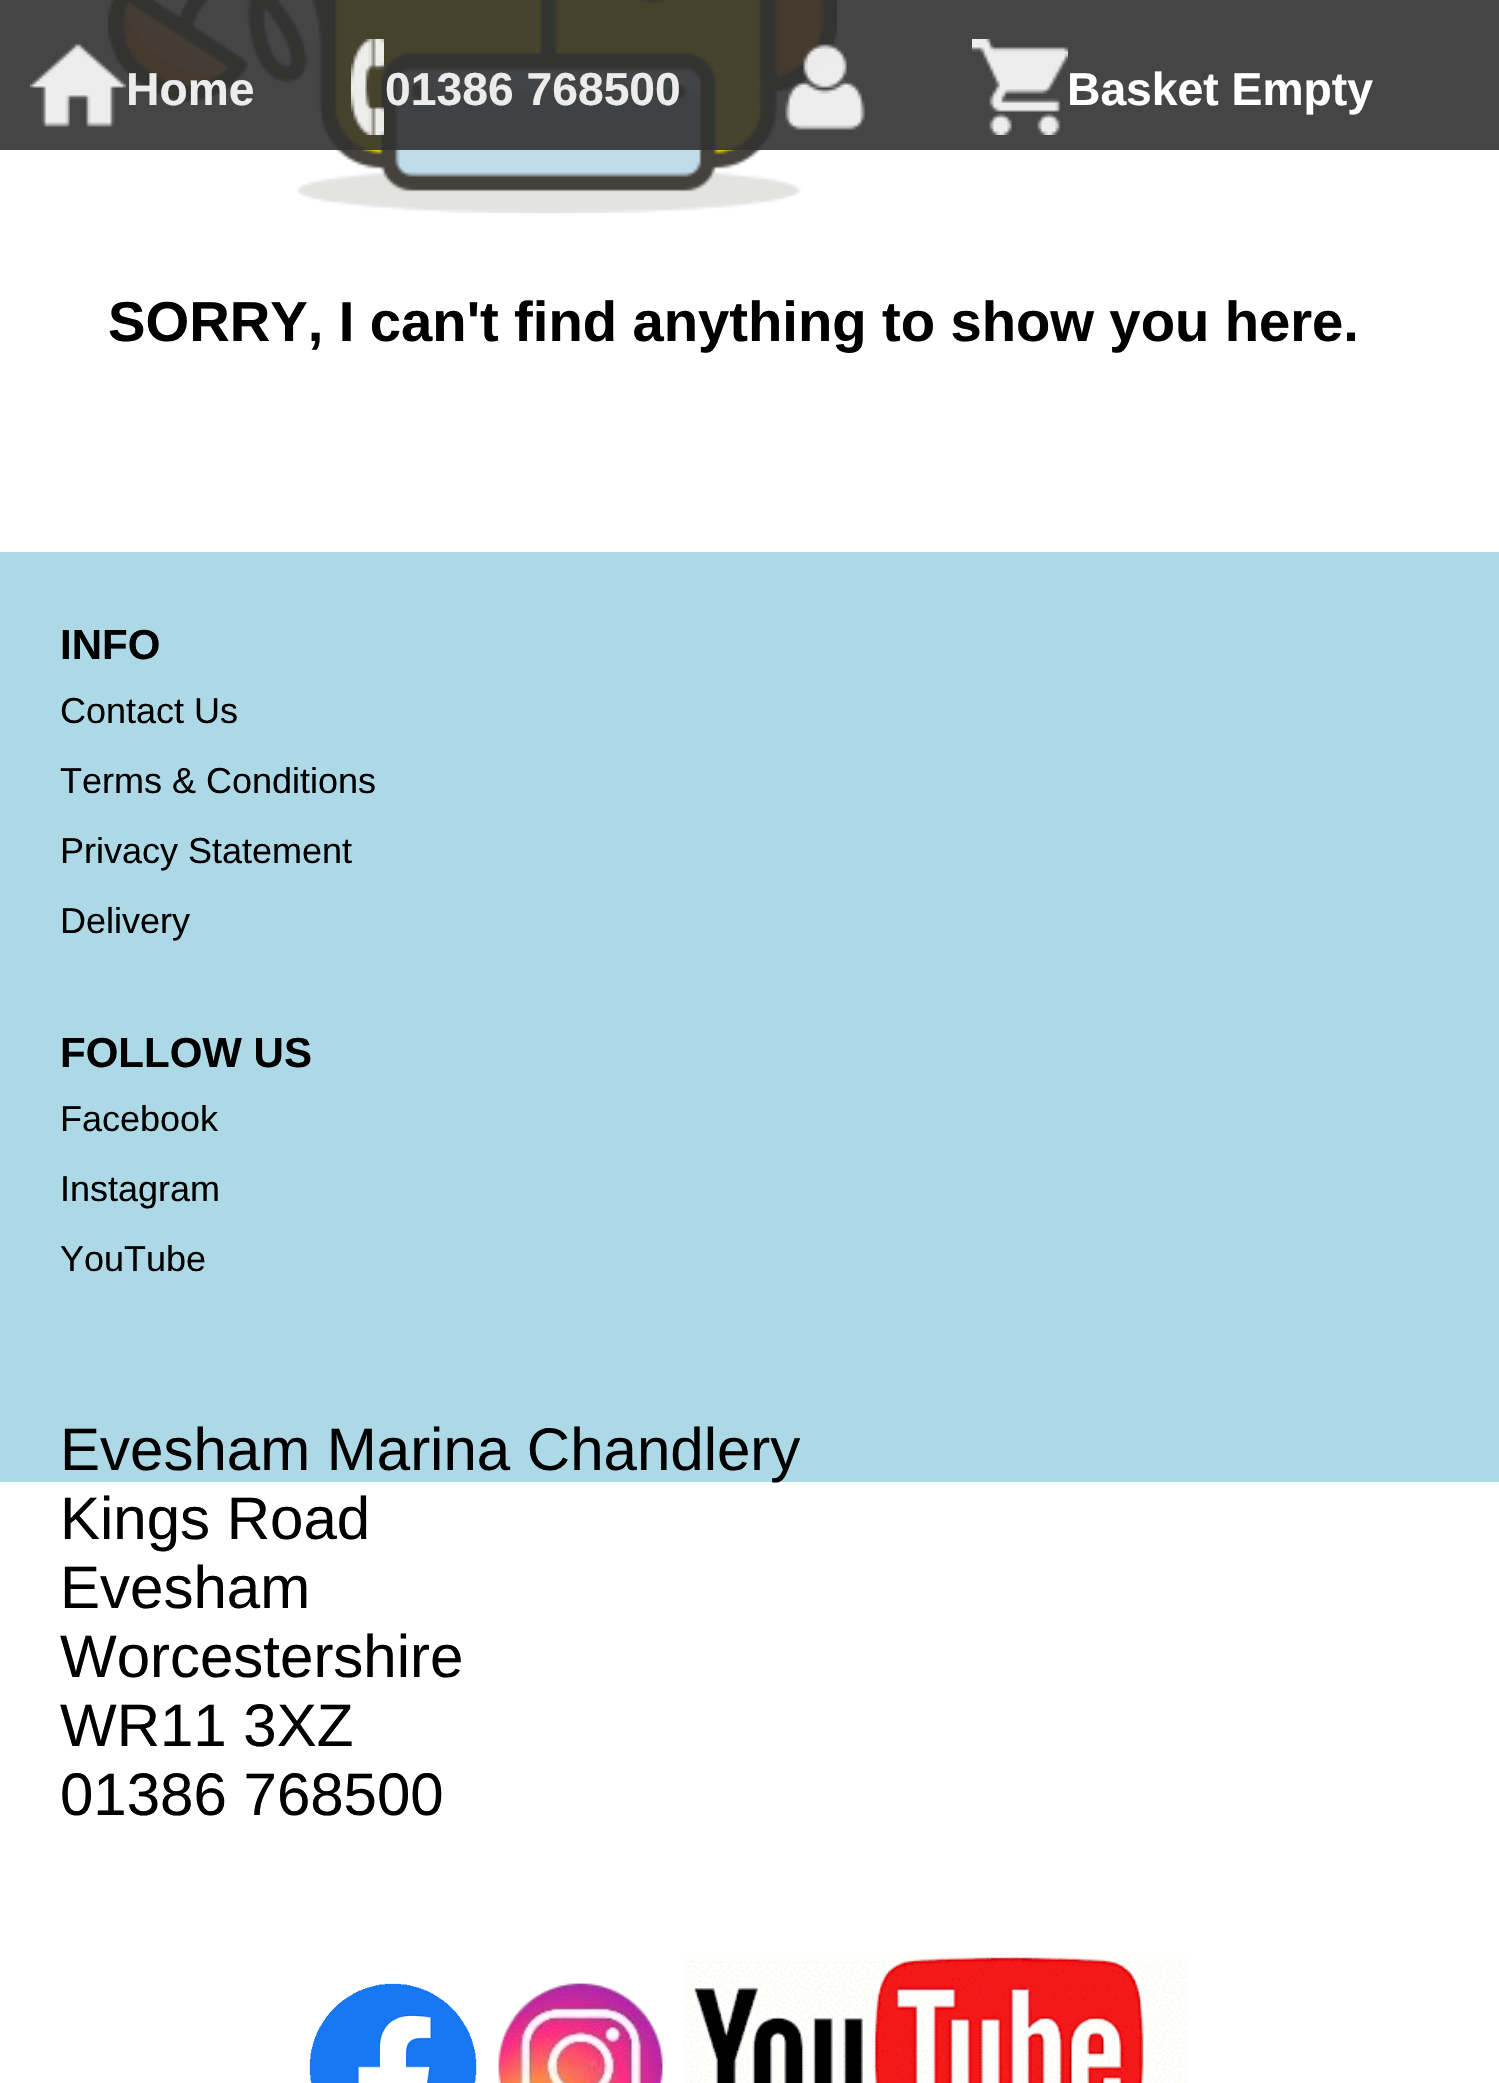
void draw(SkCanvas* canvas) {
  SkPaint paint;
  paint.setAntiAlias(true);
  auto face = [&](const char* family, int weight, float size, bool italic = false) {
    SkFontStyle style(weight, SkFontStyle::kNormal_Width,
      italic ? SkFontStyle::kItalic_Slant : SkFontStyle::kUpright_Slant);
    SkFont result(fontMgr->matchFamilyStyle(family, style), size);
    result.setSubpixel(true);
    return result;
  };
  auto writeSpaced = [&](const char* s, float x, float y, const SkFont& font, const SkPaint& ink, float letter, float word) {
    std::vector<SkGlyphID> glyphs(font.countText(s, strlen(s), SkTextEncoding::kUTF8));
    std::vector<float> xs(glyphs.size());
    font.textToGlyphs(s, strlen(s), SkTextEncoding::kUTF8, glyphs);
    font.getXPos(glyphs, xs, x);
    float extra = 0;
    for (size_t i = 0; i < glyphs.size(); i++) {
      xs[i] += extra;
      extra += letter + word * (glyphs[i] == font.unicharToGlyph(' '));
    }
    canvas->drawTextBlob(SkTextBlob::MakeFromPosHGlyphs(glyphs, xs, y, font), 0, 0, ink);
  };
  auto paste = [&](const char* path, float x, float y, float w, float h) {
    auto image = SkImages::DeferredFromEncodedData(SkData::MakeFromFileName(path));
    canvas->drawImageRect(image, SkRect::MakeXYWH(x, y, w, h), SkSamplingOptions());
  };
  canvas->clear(0xffffffff);
  paste("img/5.png", 108, 0, 729, 213);
  paint.setColor(0xe6313131);
  canvas->drawRect(SkRect::MakeXYWH(0, 0, 1499, 150), paint);
  paste("img/1.png", 30, 42, 96, 85);
  paste("img/2.png", 351, 39, 33, 96);
  paste("img/3.png", 785, 44, 80, 86);
  paste("img/4.png", 972, 39, 96, 96);
  paint.setColor(0xffadd8e6);
  canvas->drawRect(SkRect::MakeXYWH(0, 552, 1499, 930), paint);
  paste("img/6.png", 309, 1983, 168, 100);
  paste("img/7.png", 498, 1983, 165, 100);
  paste("img/8.png", 683, 1952, 506, 131);
  auto f0 = face("Liberation Sans", 700, 46.25f);
  paint.setColor(0xffececec);
  canvas->drawString("Home", 126, 105, f0, paint);
  canvas->drawString("01386 768500", 385, 105, f0, paint);
  paint.setColor(0xffffffff);
  canvas->drawString("Basket Empty", 1067, 105, f0, paint);
  auto f1 = face("Liberation Sans", 700, 56.2f);
  paint.setColor(0xff000000);
  writeSpaced("SORRY, I can't find anything to show you here.", 108, 341, f1, paint, 0, -0.25f);
  auto f2 = face("Liberation Sans", 700, 42);
  canvas->drawString("INFO", 60, 659, f2, paint);
  auto f3 = face("Liberation Sans", 400, 36);
  {
    const struct { const char* s; float x, y; } items[] = {
      {"Contact Us", 60, 723},
      {"Terms & Conditions", 60, 793},
      {"Privacy Statement", 60, 863},
      {"Delivery", 60, 933},
    };
    for (auto [s, x, y] : items) {
      canvas->drawString(s, x, y, f3, paint);
    }
  }
  canvas->drawString("FOLLOW US", 60, 1067, f2, paint);
  {
    const struct { const char* s; float x, y; } items[] = {
      {"Facebook", 60, 1131},
      {"Instagram", 60, 1201},
      {"YouTube", 60, 1271},
    };
    for (auto [s, x, y] : items) {
      canvas->drawString(s, x, y, f3, paint);
    }
  }
  auto f4 = face("Liberation Sans", 400, 60);
  {
    const struct { const char* s; float x, y; } items[] = {
      {"Evesham Marina Chandlery", 60, 1470},
      {"Kings Road", 60, 1539},
      {"Evesham", 60, 1608},
      {"Worcestershire", 60, 1677},
      {"WR11 3XZ", 60, 1746},
      {"01386 768500", 60, 1815},
    };
    for (auto [s, x, y] : items) {
      canvas->drawString(s, x, y, f4, paint);
    }
  }
}
